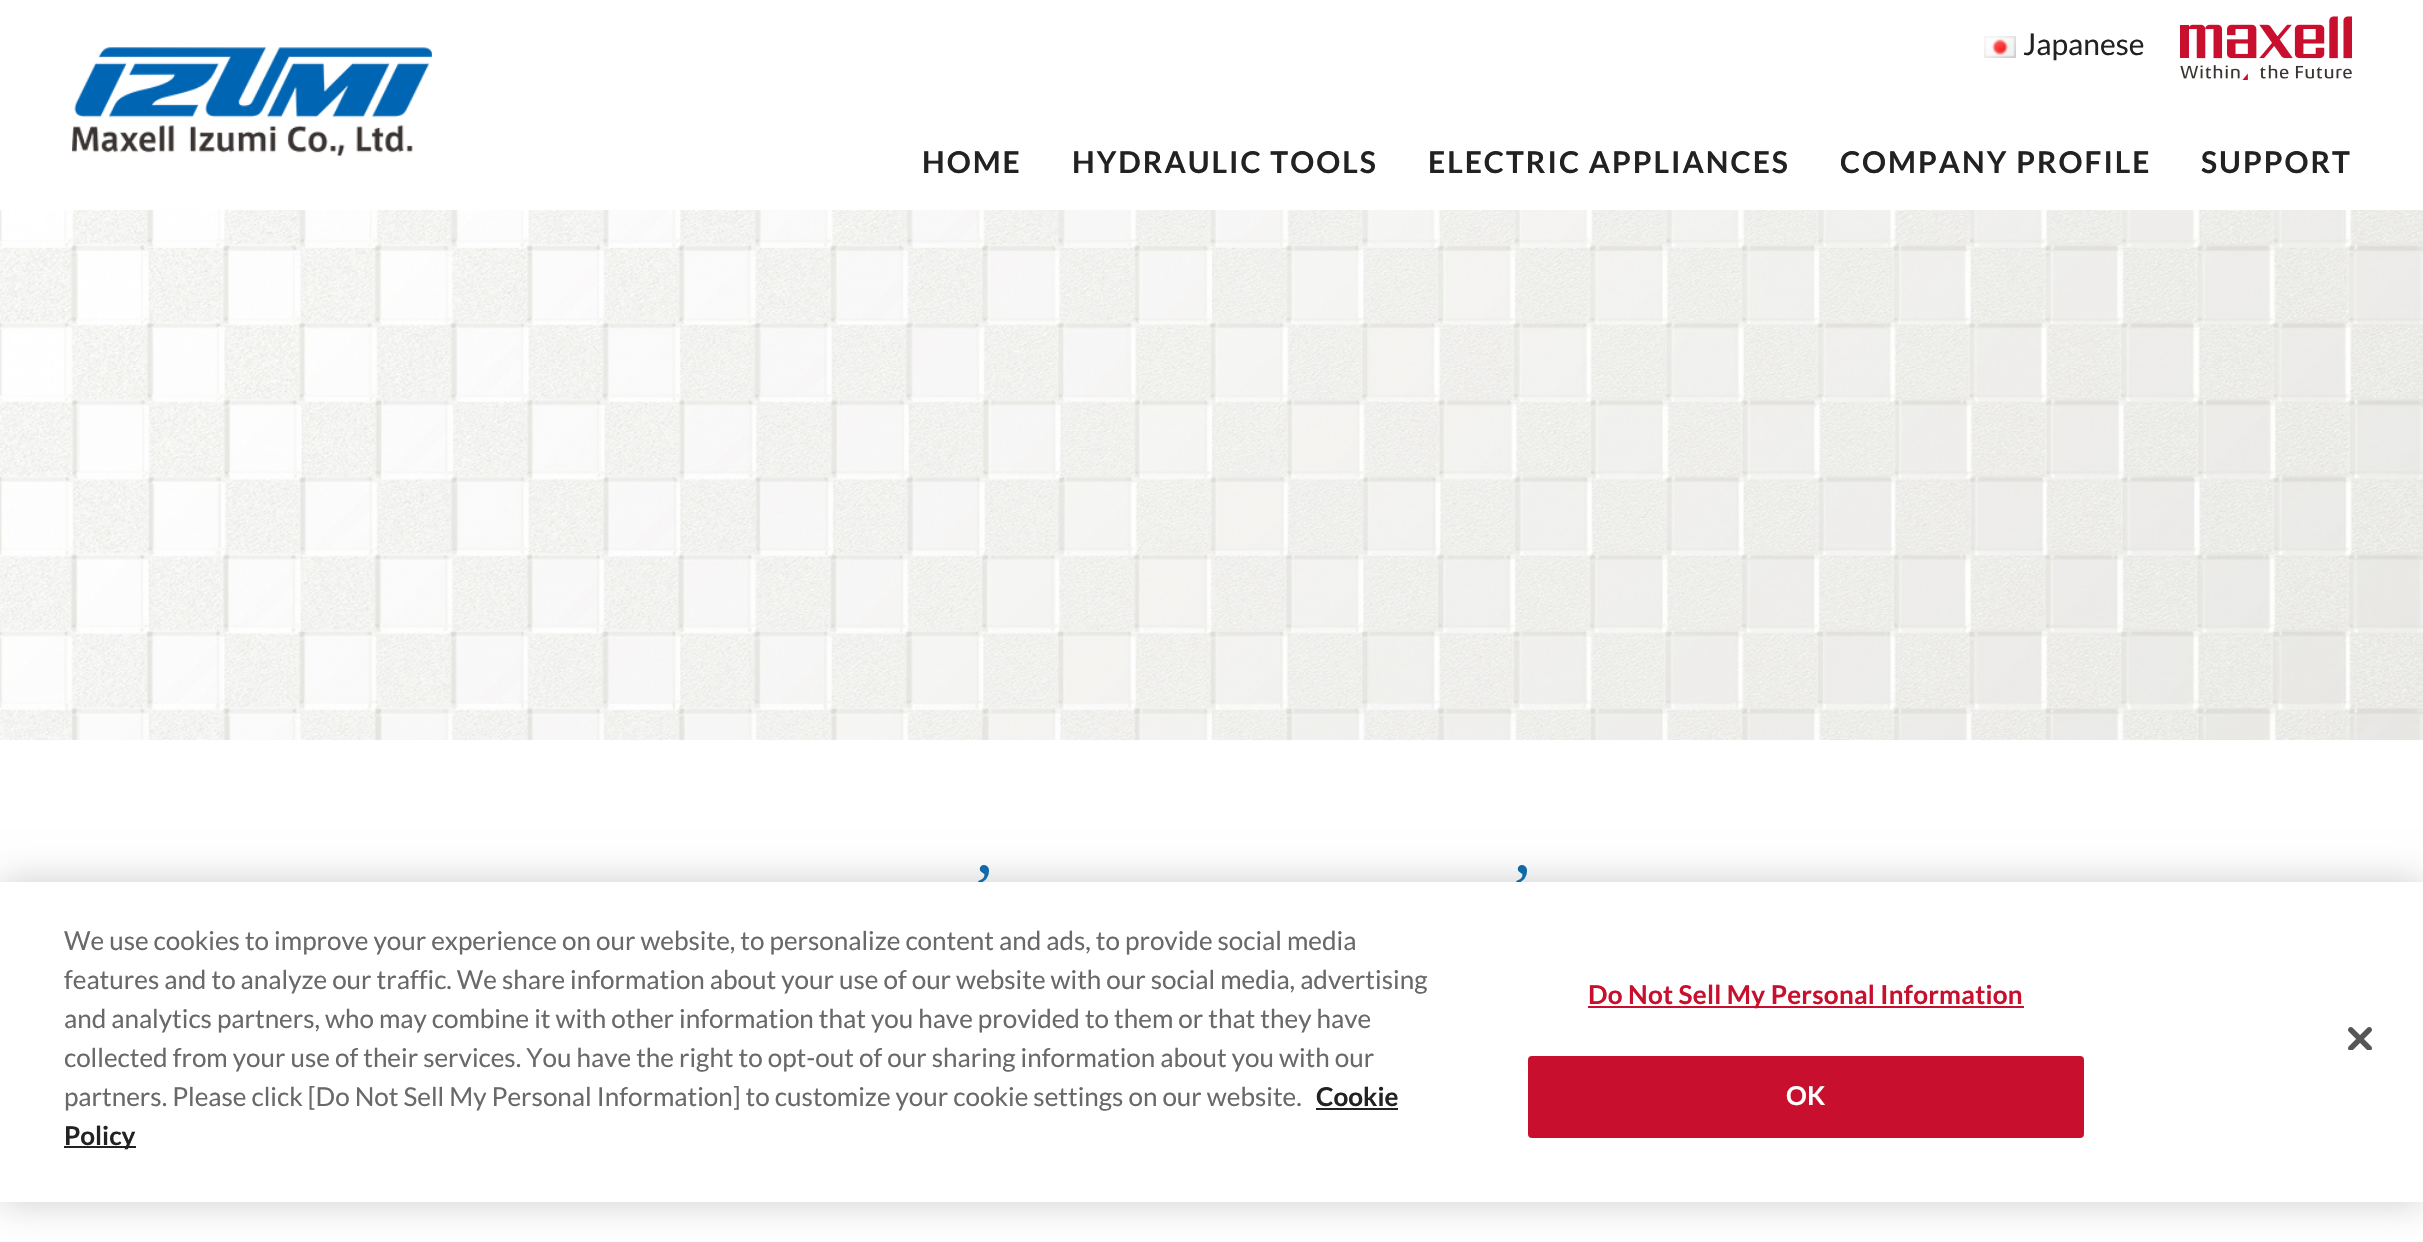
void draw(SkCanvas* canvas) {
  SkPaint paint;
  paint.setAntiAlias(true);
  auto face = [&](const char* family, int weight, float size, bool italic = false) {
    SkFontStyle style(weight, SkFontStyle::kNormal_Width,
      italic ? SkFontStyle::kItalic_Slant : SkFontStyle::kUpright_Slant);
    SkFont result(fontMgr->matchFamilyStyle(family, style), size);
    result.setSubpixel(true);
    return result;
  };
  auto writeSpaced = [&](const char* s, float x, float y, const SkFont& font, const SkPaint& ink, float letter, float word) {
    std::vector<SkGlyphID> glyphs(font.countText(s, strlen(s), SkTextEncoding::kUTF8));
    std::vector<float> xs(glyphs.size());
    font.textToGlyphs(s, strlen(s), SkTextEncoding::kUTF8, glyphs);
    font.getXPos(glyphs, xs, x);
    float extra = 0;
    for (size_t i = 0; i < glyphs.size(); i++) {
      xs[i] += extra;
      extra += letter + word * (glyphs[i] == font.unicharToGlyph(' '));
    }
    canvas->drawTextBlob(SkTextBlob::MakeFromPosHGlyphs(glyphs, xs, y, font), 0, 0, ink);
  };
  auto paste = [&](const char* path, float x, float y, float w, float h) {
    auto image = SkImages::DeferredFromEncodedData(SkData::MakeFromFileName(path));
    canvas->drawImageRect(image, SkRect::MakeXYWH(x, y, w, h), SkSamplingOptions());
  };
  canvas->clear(0xffffffff);
  paste("img/1.png", 72, 47, 360, 109);
  paste("img/2.png", 1984, 36, 32, 22);
  paste("img/3.png", 2180, 16, 172, 64);
  paste("img/4.png", 0, 210, 2423, 530);
  paint.setColor(0x33000000);
  paint.setMaskFilter(SkMaskFilter::MakeBlur(kNormal_SkBlurStyle, 18));
  canvas->drawRect(SkRect::MakeXYWH(0, 882, 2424, 320), paint);
  paint.setMaskFilter(nullptr);
  auto f0 = face("Lato", 400, 30);
  paint.setColor(0xff222222);
  canvas->drawString("Japanese", 2023, 55, f0, paint);
  auto f1 = face("Lato", 700, 30);
  {
    const struct { const char* s; float x, y; } items[] = {
      {"HOME", 922, 173},
      {"HYDRAULIC TOOLS", 1072, 173},
      {"ELECTRIC APPLIANCES", 1428, 173},
      {"COMPANY PROFILE", 1840, 173},
      {"SUPPORT", 2201, 173},
    };
    for (auto [s, x, y] : items) {
      writeSpaced(s, x, y, f1, paint, 2, 0);
    }
  }
  auto f2 = face("Liberation Serif", 400, 72);
  paint.setColor(0xff1169aa);
  canvas->drawString("’", 972, 913, f2, paint);
  canvas->drawString("’", 1510, 913, f2, paint);
  paint.setColor(0xffffffff);
  canvas->drawRect(SkRect::MakeXYWH(0, 882, 2423, 320), paint);
  auto f3 = face("Lato", 400, 26.02f);
  paint.setColor(0xff696969);
  {
    const struct { const char* s; float x, y; } items[] = {
      {"We use cookies to improve your experience on our website, to personalize content and ads, to provide social media", 64, 950},
      {"features and to analyze our traffic. We share information about your use of our website with our social media, advertising", 64, 989},
      {"and analytics partners, who may combine it with other information that you have provided to them or that they have", 64, 1028},
      {"collected from your use of their services. You have the right to opt-out of our sharing information about you with our", 64, 1067},
      {"partners. Please click [Do Not Sell My Personal Information] to customize your cookie settings on our website.", 64, 1106},
    };
    for (auto [s, x, y] : items) {
      canvas->drawString(s, x, y, f3, paint);
    }
  }
  auto f4 = face("Lato", 700, 26.02f);
  paint.setColor(0xff222222);
  canvas->drawString("Cookie", 1316, 1106, f4, paint);
  canvas->drawRect(SkRect::MakeXYWH(1316, 1108, 82, 2), paint);
  canvas->drawRect(SkRect::MakeXYWH(64, 1146, 72, 2), paint);
  canvas->drawString("Policy", 64, 1145, f4, paint);
  paint.setColor(0xffc8102e);
  canvas->drawRect(SkRect::MakeXYWH(1588, 1006, 436, 2), paint);
  writeSpaced("Do Not Sell My Personal Information", 1588, 1004, f4, paint, 0.25f, 0);
  canvas->drawRoundRect(SkRect::MakeXYWH(1529, 1057, 554, 80), 3, 3, paint);
  paint.setStroke(true);
  paint.setStrokeWidth(2);
  canvas->drawRoundRect(SkRect::MakeXYWH(1529, 1057, 554, 80), 3, 3, paint);
  paint.setStroke(false);
  paint.setColor(0xffffffff);
  writeSpaced("OK", 1786, 1105, f4, paint, 0.25f, 0);
  paste("img/5.png", 2348, 1027, 24, 23);
}
